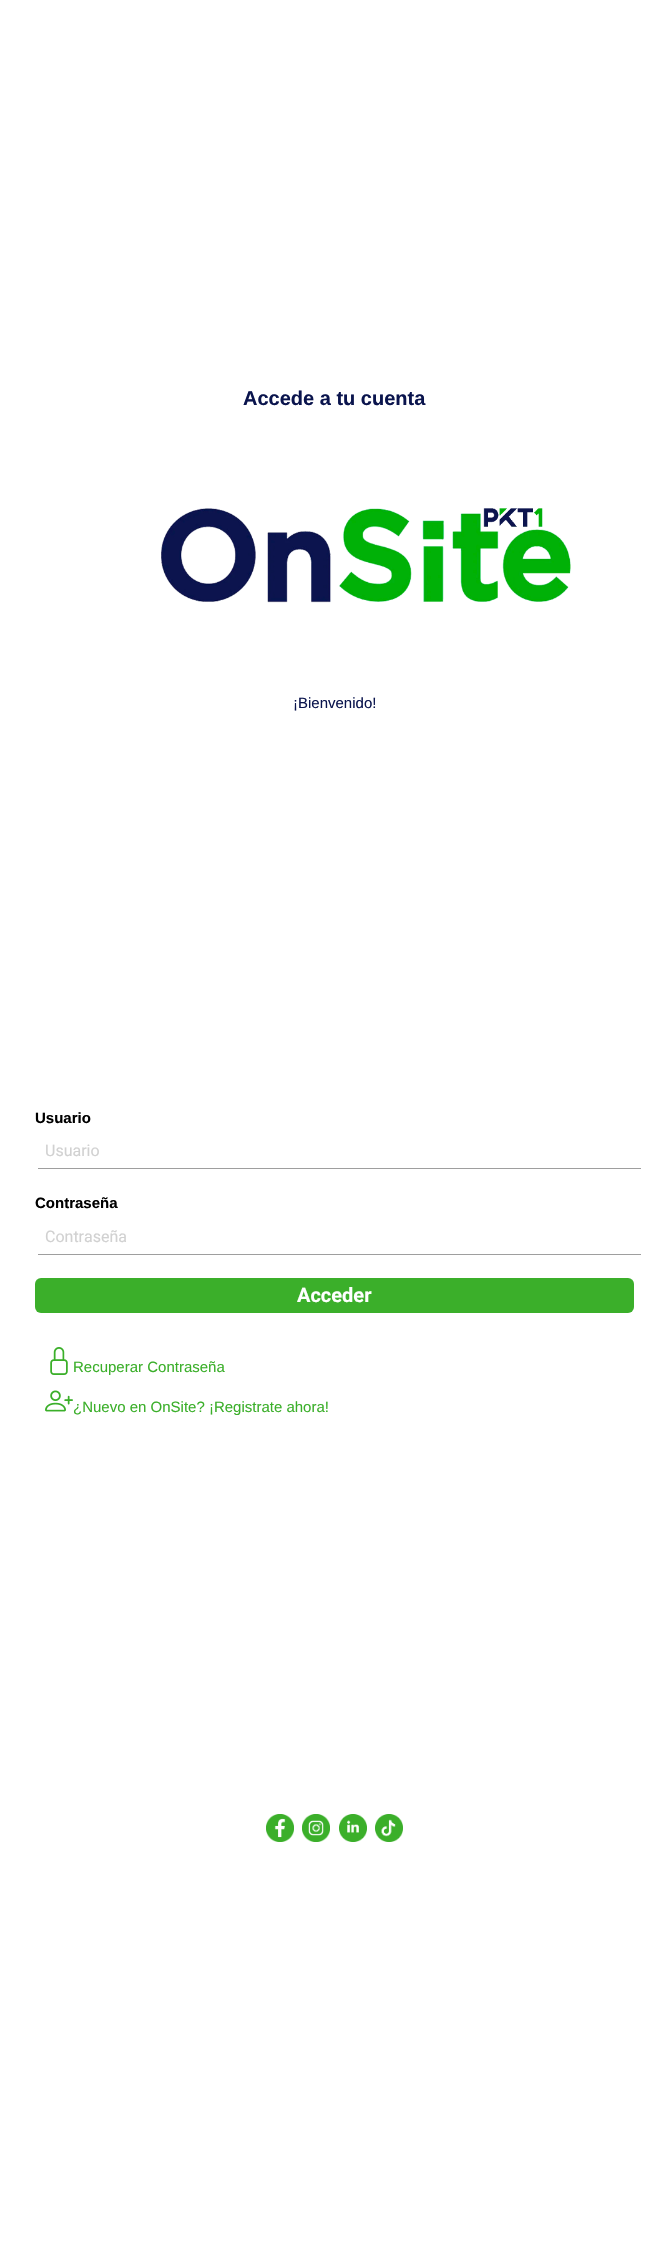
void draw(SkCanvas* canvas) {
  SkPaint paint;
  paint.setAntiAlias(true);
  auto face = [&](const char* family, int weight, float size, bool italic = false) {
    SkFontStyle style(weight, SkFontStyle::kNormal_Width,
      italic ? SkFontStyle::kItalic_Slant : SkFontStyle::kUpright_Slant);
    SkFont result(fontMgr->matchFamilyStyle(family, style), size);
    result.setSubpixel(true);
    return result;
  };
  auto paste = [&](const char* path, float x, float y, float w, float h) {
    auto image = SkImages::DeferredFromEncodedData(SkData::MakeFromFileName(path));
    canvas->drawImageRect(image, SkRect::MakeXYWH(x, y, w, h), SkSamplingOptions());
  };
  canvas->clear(0xffffffff);
  paste("img/1.png", 161, 508, 410, 95);
  paint.setColor(0xff9e9e9e);
  canvas->drawRect(SkRect::MakeXYWH(38, 1168, 603, 1), paint);
  canvas->drawRect(SkRect::MakeXYWH(38, 1254, 603, 1), paint);
  paint.setColor(0xff3baf2a);
  canvas->drawRoundRect(SkRect::MakeXYWH(35, 1278, 599, 35), 6, 6, paint);
  paste("img/2.png", 50, 1347, 18, 28);
  paste("img/3.png", 45, 1390, 28, 22);
  paste("img/4.png", 266, 1814, 28, 28);
  paste("img/5.png", 302, 1814, 28, 28);
  paste("img/6.png", 339, 1814, 28, 28);
  paste("img/7.png", 375, 1814, 28, 28);
  auto f0 = face("Liberation Sans", 700, 20);
  paint.setColor(0xff0a144d);
  canvas->drawString("Accede a tu cuenta", 243, 405, f0, paint);
  auto f1 = face("Liberation Sans", 400, 15);
  canvas->drawString("¡Bienvenido!", 293, 708, f1, paint);
  auto f2 = face("Liberation Sans", 700, 15);
  paint.setColor(0xff000000);
  canvas->drawString("Usuario", 35, 1123, f2, paint);
  auto f3 = face("Roboto", 400, 16);
  paint.setColor(0xffd1d1d1);
  canvas->drawString("Usuario", 45, 1156, f3, paint);
  paint.setColor(0xff000000);
  canvas->drawString("Contraseña", 35, 1208, f2, paint);
  paint.setColor(0xffd1d1d1);
  canvas->drawString("Contraseña", 45, 1242, f3, paint);
  auto f4 = face("Roboto", 700, 20);
  paint.setColor(0xffffffff);
  canvas->drawString("Acceder", 297, 1302, f4, paint);
  paint.setColor(0xff3baf2a);
  canvas->drawString("Recuperar Contraseña", 73, 1372, f1, paint);
  canvas->drawString("¿Nuevo en OnSite? ¡Registrate ahora!", 73, 1412, f1, paint);
}
